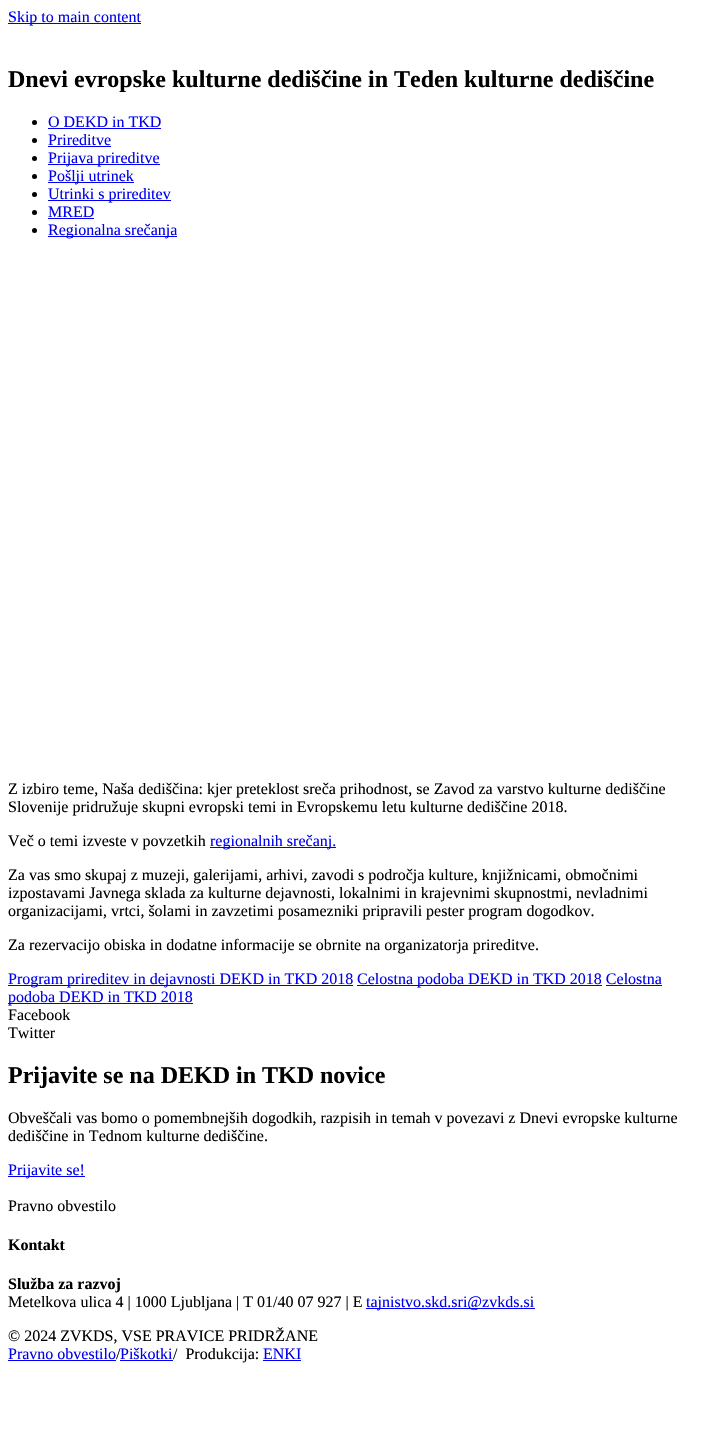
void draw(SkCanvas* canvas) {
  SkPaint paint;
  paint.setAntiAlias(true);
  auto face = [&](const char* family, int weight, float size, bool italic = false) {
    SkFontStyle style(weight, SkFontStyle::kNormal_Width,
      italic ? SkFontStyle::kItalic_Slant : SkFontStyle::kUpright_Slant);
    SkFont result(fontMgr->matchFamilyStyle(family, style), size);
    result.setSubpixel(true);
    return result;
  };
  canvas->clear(0xffffffff);
  paint.setColor(0xff0000ee);
  canvas->drawRect(SkRect::MakeXYWH(8, 23, 133, 1), paint);
  paint.setColor(0xff000000);
  canvas->drawCircle(34.5f, 122.5f, 2.5f, paint);
  paint.setColor(0xff0000ee);
  canvas->drawRect(SkRect::MakeXYWH(48, 128, 113, 1), paint);
  paint.setColor(0xff000000);
  canvas->drawCircle(34.5f, 140.5f, 2.5f, paint);
  paint.setColor(0xff0000ee);
  canvas->drawRect(SkRect::MakeXYWH(48, 146, 63, 1), paint);
  paint.setColor(0xff000000);
  canvas->drawCircle(34.5f, 158.5f, 2.5f, paint);
  paint.setColor(0xff0000ee);
  canvas->drawRect(SkRect::MakeXYWH(48, 164, 112, 1), paint);
  paint.setColor(0xff000000);
  canvas->drawCircle(34.5f, 176.5f, 2.5f, paint);
  paint.setColor(0xff0000ee);
  canvas->drawRect(SkRect::MakeXYWH(48, 182, 86, 1), paint);
  paint.setColor(0xff000000);
  canvas->drawCircle(34.5f, 194.5f, 2.5f, paint);
  paint.setColor(0xff0000ee);
  canvas->drawRect(SkRect::MakeXYWH(48, 200, 123, 1), paint);
  paint.setColor(0xff000000);
  canvas->drawCircle(34.5f, 212.5f, 2.5f, paint);
  paint.setColor(0xff0000ee);
  canvas->drawRect(SkRect::MakeXYWH(48, 218, 46, 1), paint);
  paint.setColor(0xff000000);
  canvas->drawCircle(34.5f, 230.5f, 2.5f, paint);
  {
    const struct { float x, y, w, h; SkColor color; } items[] = {
      {48, 236, 129, 1, 0xff0000ee},
      {210, 847, 126, 1, 0xff0000ee},
      {8, 985, 345, 1, 0xff0000ee},
      {357, 985, 245, 1, 0xff0000ee},
      {606, 985, 56, 1, 0xff0000ee},
      {8, 1003, 185, 1, 0xff0000ee},
      {8, 1176, 77, 1, 0xff0000ee},
      {366, 1308, 169, 1, 0xff0000ee},
      {8, 1360, 108, 1, 0xff0000ee},
      {120, 1360, 53, 1, 0xff0000ee},
      {263, 1360, 38, 1, 0xff0000ee},
    };
    for (auto [x, y, w, h, color] : items) {
      paint.setColor(color);
      canvas->drawRect(SkRect::MakeXYWH(x, y, w, h), paint);
    }
  }
  auto f0 = face("Liberation Serif", 400, 16);
  canvas->drawString("Skip to main content", 8, 22, f0, paint);
  auto f1 = face("Liberation Serif", 700, 24);
  paint.setColor(0xff000000);
  canvas->drawString("Dnevi evropske kulturne dediščine in Teden kulturne dediščine", 8, 87, f1, paint);
  paint.setColor(0xff0000ee);
  {
    const struct { const char* s; float x, y; } items[] = {
      {"O DEKD in TKD", 48, 127},
      {"Prireditve", 48, 145},
      {"Prijava prireditve", 48, 163},
      {"Pošlji utrinek", 48, 181},
      {"Utrinki s prireditev", 48, 199},
      {"MRED", 48, 217},
      {"Regionalna srečanja", 48, 235},
    };
    for (auto [s, x, y] : items) {
      canvas->drawString(s, x, y, f0, paint);
    }
  }
  paint.setColor(0xff000000);
  {
    const struct { const char* s; float x, y; } items[] = {
      {"Z izbiro teme, Naša dediščina: kjer preteklost sreča prihodnost, se Zavod za varstvo kulturne dediščine", 8, 794},
      {"Slovenije pridružuje skupni evropski temi in Evropskemu letu kulturne dediščine 2018.", 8, 812},
      {"Več o temi izveste v povzetkih", 8, 846},
    };
    for (auto [s, x, y] : items) {
      canvas->drawString(s, x, y, f0, paint);
    }
  }
  paint.setColor(0xff0000ee);
  canvas->drawString("regionalnih srečanj.", 210, 846, f0, paint);
  paint.setColor(0xff000000);
  {
    const struct { const char* s; float x, y; } items[] = {
      {"Za vas smo skupaj z muzeji, galerijami, arhivi, zavodi s področja kulture, knjižnicami, območnimi", 8, 880},
      {"izpostavami Javnega sklada za kulturne dejavnosti, lokalnimi in krajevnimi skupnostmi, nevladnimi", 8, 898},
      {"organizacijami, vrtci, šolami in zavzetimi posamezniki pripravili pester program dogodkov.", 8, 916},
      {"Za rezervacijo obiska in dodatne informacije se obrnite na organizatorja prireditve.", 8, 950},
    };
    for (auto [s, x, y] : items) {
      canvas->drawString(s, x, y, f0, paint);
    }
  }
  paint.setColor(0xff0000ee);
  {
    const struct { const char* s; float x, y; } items[] = {
      {"Program prireditev in dejavnosti DEKD in TKD 2018", 8, 984},
      {"Celostna podoba DEKD in TKD 2018 Celostna", 357, 984},
      {"podoba DEKD in TKD 2018", 8, 1002},
    };
    for (auto [s, x, y] : items) {
      canvas->drawString(s, x, y, f0, paint);
    }
  }
  paint.setColor(0xff000000);
  canvas->drawString("Facebook", 8, 1020, f0, paint);
  canvas->drawString("Twitter", 8, 1038, f0, paint);
  canvas->drawString("Prijavite se na DEKD in TKD novice", 8, 1083, f1, paint);
  canvas->drawString("Obveščali vas bomo o pomembnejših dogodkih, razpisih in temah v povezavi z Dnevi evropske kulturne", 8, 1123, f0, paint);
  canvas->drawString("dediščine in Tednom kulturne dediščine.", 8, 1141, f0, paint);
  paint.setColor(0xff0000ee);
  canvas->drawString("Prijavite se!", 8, 1175, f0, paint);
  paint.setColor(0xff000000);
  canvas->drawString("Pravno obvestilo", 8, 1211, f0, paint);
  auto f2 = face("Liberation Serif", 700, 16);
  canvas->drawString("Kontakt", 8, 1250, f2, paint);
  canvas->drawString("Služba za razvoj", 8, 1289, f2, paint);
  canvas->drawString("Metelkova ulica 4 | 1000 Ljubljana | T 01/40 07 927 | E", 8, 1307, f0, paint);
  paint.setColor(0xff0000ee);
  canvas->drawString("tajnistvo.skd.sri@zvkds.si", 366, 1307, f0, paint);
  paint.setColor(0xff000000);
  canvas->drawString("© 2024 ZVKDS, VSE PRAVICE PRIDRŽANE", 8, 1341, f0, paint);
  paint.setColor(0xff0000ee);
  canvas->drawString("Pravno obvestilo", 8, 1359, f0, paint);
  paint.setColor(0xff000000);
  canvas->drawString("/", 116, 1359, f0, paint);
  paint.setColor(0xff0000ee);
  canvas->drawString("Piškotki", 120, 1359, f0, paint);
  paint.setColor(0xff000000);
  canvas->drawString("/  Produkcija:", 173, 1359, f0, paint);
  paint.setColor(0xff0000ee);
  canvas->drawString("ENKI", 263, 1359, f0, paint);
}
